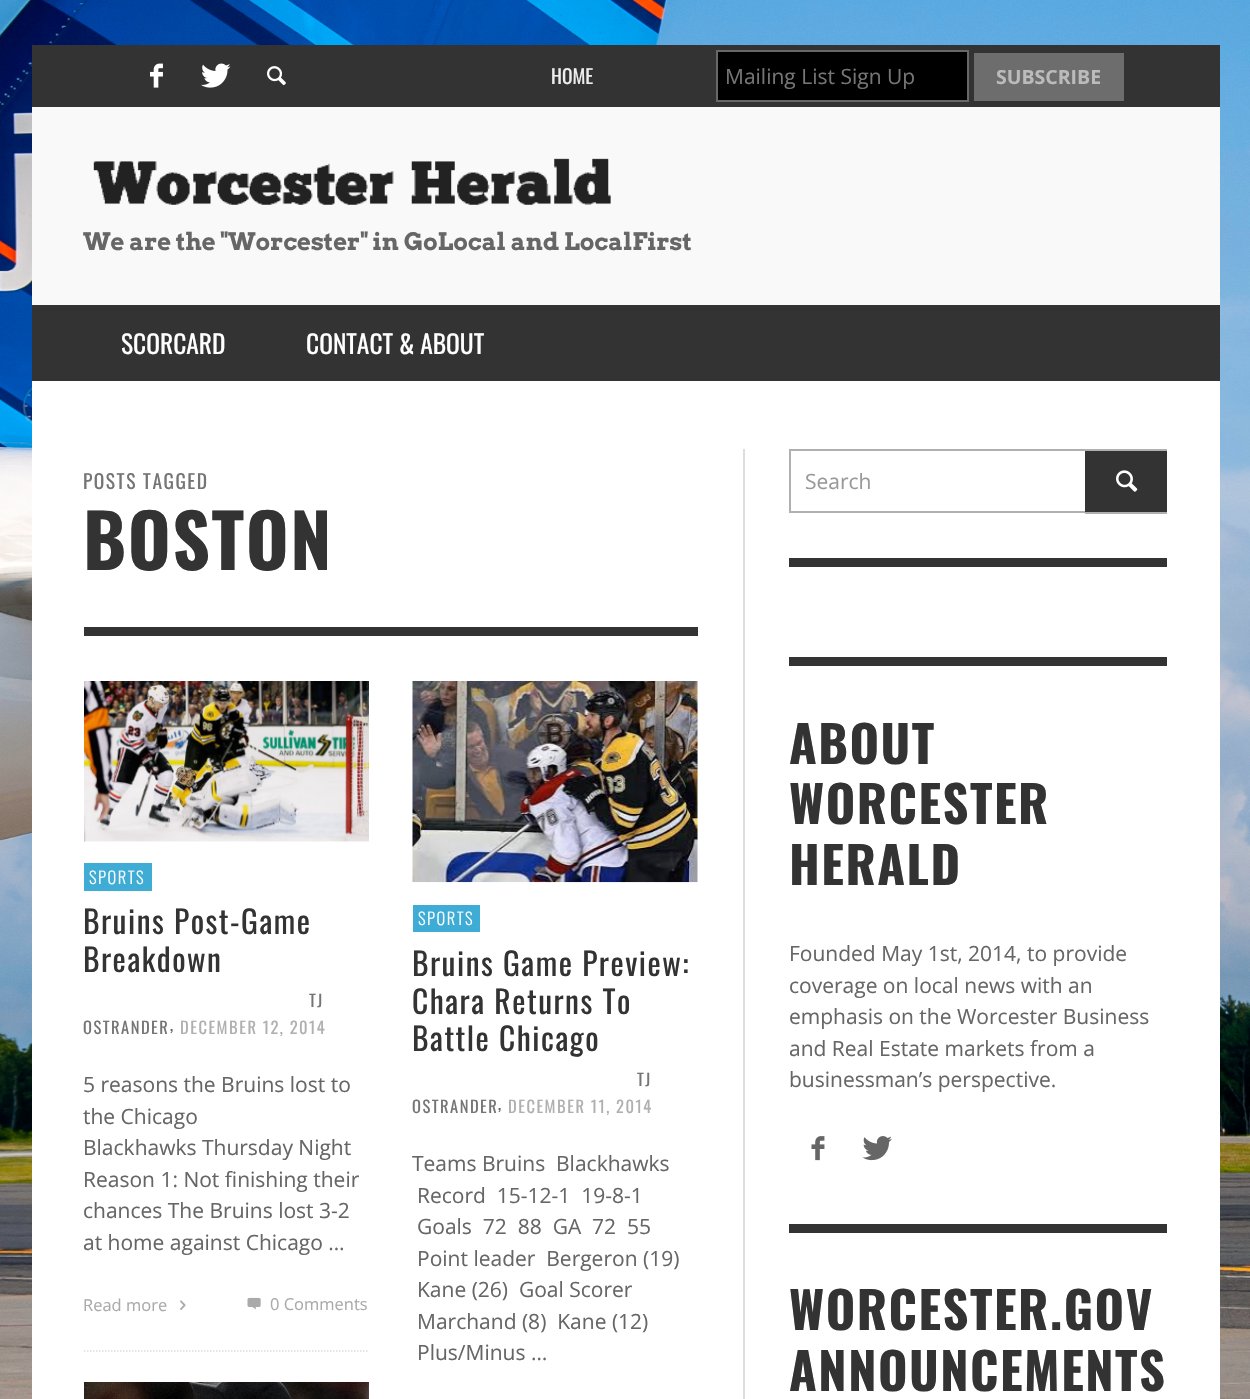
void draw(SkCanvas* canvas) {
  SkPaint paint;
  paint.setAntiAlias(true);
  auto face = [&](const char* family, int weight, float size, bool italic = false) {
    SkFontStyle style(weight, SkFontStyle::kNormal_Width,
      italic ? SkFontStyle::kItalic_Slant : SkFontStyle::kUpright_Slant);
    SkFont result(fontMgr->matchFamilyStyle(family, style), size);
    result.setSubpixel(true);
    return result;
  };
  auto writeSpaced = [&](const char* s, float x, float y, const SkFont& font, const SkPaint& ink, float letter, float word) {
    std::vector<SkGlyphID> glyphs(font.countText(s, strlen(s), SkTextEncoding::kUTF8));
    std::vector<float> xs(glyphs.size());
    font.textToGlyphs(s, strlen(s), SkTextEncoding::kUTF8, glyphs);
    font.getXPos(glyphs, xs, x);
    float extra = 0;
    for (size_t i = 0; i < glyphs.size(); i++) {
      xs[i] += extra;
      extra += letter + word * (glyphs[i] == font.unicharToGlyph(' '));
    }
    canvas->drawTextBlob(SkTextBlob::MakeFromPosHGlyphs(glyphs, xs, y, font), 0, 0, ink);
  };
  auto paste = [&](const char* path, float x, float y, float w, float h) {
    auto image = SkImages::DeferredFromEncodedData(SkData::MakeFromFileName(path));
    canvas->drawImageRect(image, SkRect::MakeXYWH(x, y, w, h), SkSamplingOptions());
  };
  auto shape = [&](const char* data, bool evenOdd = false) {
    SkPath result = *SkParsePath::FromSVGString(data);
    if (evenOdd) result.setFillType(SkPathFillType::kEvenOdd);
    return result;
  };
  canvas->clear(0xffffffff);
  paste("img/1.png", 0, 0, 1250, 1399);
  paint.setColor(0xffffffff);
  canvas->drawRect(SkRect::MakeXYWH(32, 381, 1188, 1018), paint);
  paint.setColor(0xff333333);
  canvas->drawRect(SkRect::MakeXYWH(32, 45, 1188, 62), paint);
  paste("img/2.png", 150, 63, 13, 25);
  paste("img/3.png", 201, 63, 30, 25);
  paste("img/4.png", 267, 66, 19, 20);
  paint.setColor(0xff000000);
  canvas->drawRect(SkRect::MakeXYWH(717, 51, 251, 50), paint);
  paint.setStroke(true);
  paint.setStrokeWidth(2);
  paint.setColor(0xff686868);
  canvas->drawRect(SkRect::MakeXYWH(717, 51, 251, 50), paint);
  paint.setStroke(false);
  paint.setColor(0xff6d6d6d);
  canvas->drawRect(SkRect::MakeXYWH(974, 53, 150, 48), paint);
  paint.setColor(0xfff9f9f9);
  canvas->drawRect(SkRect::MakeXYWH(32, 107, 1188, 198), paint);
  paste("img/5.png", 93, 158, 518, 47);
  paint.setColor(0xff333333);
  canvas->drawRect(SkRect::MakeXYWH(32, 305, 1188, 76), paint);
  canvas->drawRect(SkRect::MakeXYWH(84, 627, 614, 9), paint);
  paint.setStroke(true);
  paint.setStrokeWidth(1.5f);
  paint.setColor(0xffdddddd);
  paint.setPathEffect(SkDashPathEffect::Make({{1.5f, 1.5f}}, 0));
  canvas->drawPath(shape("M84 1351H367.5"), paint);
  paint.setPathEffect(nullptr);
  paste("img/6.png", 84, 681, 285, 161);
  paint.setStroke(false);
  paint.setColor(0xff3facd6);
  canvas->drawRect(SkRect::MakeXYWH(84, 863, 68, 28), paint);
  paste("img/7.png", 180, 1300, 6, 10);
  paste("img/8.png", 247, 1297, 14, 13);
  paste("img/9.png", 412, 681, 286, 202);
  canvas->drawRect(SkRect::MakeXYWH(413, 905, 67, 27), paint);
  paste("img/10.png", 84, 1382, 285, 17);
  paint.setColor(0xffdddddd);
  canvas->drawRect(SkRect::MakeXYWH(743, 449, 2, 950), paint);
  paint.setStroke(true);
  paint.setStrokeWidth(2);
  paint.setColor(0xffb0b0b0);
  canvas->drawRect(SkRect::MakeXYWH(790, 450, 376, 62), paint);
  paint.setStroke(false);
  paint.setColor(0xff333333);
  canvas->drawRect(SkRect::MakeXYWH(1085, 451, 82, 61), paint);
  paint.setColor(0xffb0b0b0);
  canvas->drawRect(SkRect::MakeXYWH(1085, 513, 82, 1), paint);
  paste("img/11.png", 1116, 470, 22, 22);
  paint.setColor(0xff333333);
  canvas->drawRect(SkRect::MakeXYWH(789, 558, 378, 9), paint);
  canvas->drawRect(SkRect::MakeXYWH(789, 657, 378, 9), paint);
  paste("img/12.png", 811, 1136, 14, 25);
  paste("img/13.png", 862, 1136, 30, 25);
  canvas->drawRect(SkRect::MakeXYWH(789, 1224, 378, 9), paint);
  auto f0 = face("Oswald", 400, 19.5f);
  paint.setColor(0xffeeeeee);
  canvas->drawString("HOME", 551, 84, f0, paint);
  auto f1 = face("Open Sans", 400, 21);
  paint.setColor(0xff757575);
  canvas->drawString("Mailing List Sign Up", 725, 84, f1, paint);
  auto f2 = face("Open Sans", 700, 19.5f);
  paint.setColor(0xffbbbbbb);
  canvas->drawString("SUBSCRIBE", 996, 84, f2, paint);
  auto f3 = face("Arvo", 700, 24);
  paint.setColor(0xff666666);
  canvas->drawString("We are the \"Worcester\" in GoLocal and LocalFirst", 83, 250, f3, paint);
  auto f4 = face("Oswald", 400, 25.5f);
  paint.setColor(0xffffffff);
  canvas->drawString("SCORCARD", 121, 354, f4, paint);
  canvas->drawString("CONTACT & ABOUT", 306, 354, f4, paint);
  paint.setColor(0xff757575);
  writeSpaced("POSTS TAGGED", 83, 489, f0, paint, 1.5f, 0);
  auto f5 = face("Oswald", 700, 73.5f);
  paint.setColor(0xff333333);
  writeSpaced("BOSTON", 83, 570, f5, paint, 1.5f, 0);
  auto f6 = face("Oswald", 300, 16.5f);
  paint.setColor(0xffffffff);
  writeSpaced("SPORTS", 89, 884, f6, paint, 1.5f, 0);
  auto f7 = face("Oswald", 400, 31.5f);
  paint.setColor(0xff333333);
  writeSpaced("Bruins Post-Game", 83, 934, f7, paint, 1.5f, 0);
  writeSpaced("Breakdown", 83, 972, f7, paint, 1.5f, 0);
  auto f8 = face("Oswald", 400, 16.5f);
  paint.setColor(0xff757575);
  writeSpaced("TJ", 309, 1007, f8, paint, 1.5f, 0);
  writeSpaced("OSTRANDER", 83, 1034, f8, paint, 1.5f, 0);
  paint.setColor(0xff666666);
  writeSpaced(",", 170, 1031, f8, paint, 1.5f, 0);
  paint.setColor(0xffb0b0b0);
  writeSpaced("DECEMBER 12, 2014", 180, 1034, f8, paint, 1.5f, 0);
  paint.setColor(0xff666666);
  {
    const struct { const char* s; float x, y; } items[] = {
      {"5 reasons the Bruins lost to", 83, 1092},
      {"the Chicago", 83, 1124},
      {"Blackhawks Thursday Night", 83, 1155},
      {"Reason 1: Not finishing their", 83, 1187},
      {"chances The Bruins lost 3-2", 83, 1218},
      {"at home against Chicago …", 83, 1250},
    };
    for (auto [s, x, y] : items) {
      canvas->drawString(s, x, y, f1, paint);
    }
  }
  auto f9 = face("Open Sans", 400, 16.5f);
  paint.setColor(0xffaaaaaa);
  canvas->drawString("Read more", 83, 1311, f9, paint);
  canvas->drawString("0 Comments", 270, 1310, f9, paint);
  paint.setColor(0xffffffff);
  writeSpaced("SPORTS", 418, 925, f6, paint, 1.5f, 0);
  paint.setColor(0xff333333);
  {
    const struct { const char* s; float x, y; } items[] = {
      {"Bruins Game Preview:", 412, 976},
      {"Chara Returns To", 412, 1014},
      {"Battle Chicago", 412, 1051},
    };
    for (auto [s, x, y] : items) {
      writeSpaced(s, x, y, f7, paint, 1.5f, 0);
    }
  }
  paint.setColor(0xff757575);
  writeSpaced("TJ", 637, 1086, f8, paint, 1.5f, 0);
  writeSpaced("OSTRANDER", 412, 1113, f8, paint, 1.5f, 0);
  paint.setColor(0xff666666);
  writeSpaced(",", 498, 1110, f8, paint, 1.5f, 0);
  paint.setColor(0xffb0b0b0);
  writeSpaced("DECEMBER 11, 2014", 508, 1113, f8, paint, 1.5f, 0);
  paint.setColor(0xff666666);
  {
    const struct { const char* s; float x, y; } items[] = {
      {"Teams Bruins  Blackhawks", 412, 1171},
      {"Record  15-12-1  19-8-1", 417, 1203},
      {"Goals  72  88  GA  72  55", 417, 1234},
      {"Point leader  Bergeron (19)", 417, 1266},
      {"Kane (26)  Goal Scorer", 417, 1297},
      {"Marchand (8)  Kane (12)", 417, 1329},
      {"Plus/Minus …", 417, 1360},
    };
    for (auto [s, x, y] : items) {
      canvas->drawString(s, x, y, f1, paint);
    }
  }
  paint.setColor(0xff999999);
  canvas->drawString("Search", 805, 489, f1, paint);
  auto f10 = face("Oswald", 700, 50.5f);
  paint.setColor(0xff333333);
  {
    const struct { const char* s; float x, y; } items[] = {
      {"ABOUT", 789, 764},
      {"WORCESTER", 789, 824},
      {"HERALD", 789, 885},
    };
    for (auto [s, x, y] : items) {
      writeSpaced(s, x, y, f10, paint, 1.5f, 0);
    }
  }
  paint.setColor(0xff666666);
  {
    const struct { const char* s; float x, y; } items[] = {
      {"Founded May 1st, 2014, to provide", 789, 961},
      {"coverage on local news with an", 789, 993},
      {"emphasis on the Worcester Business", 789, 1024},
      {"and Real Estate markets from a", 789, 1056},
      {"businessman’s perspective.", 789, 1087},
    };
    for (auto [s, x, y] : items) {
      canvas->drawString(s, x, y, f1, paint);
    }
  }
  paint.setColor(0xff333333);
  writeSpaced("WORCESTER.GOV", 789, 1330, f10, paint, 1.5f, 0);
  writeSpaced("ANNOUNCEMENTS", 789, 1391, f10, paint, 1.5f, 0);
}
